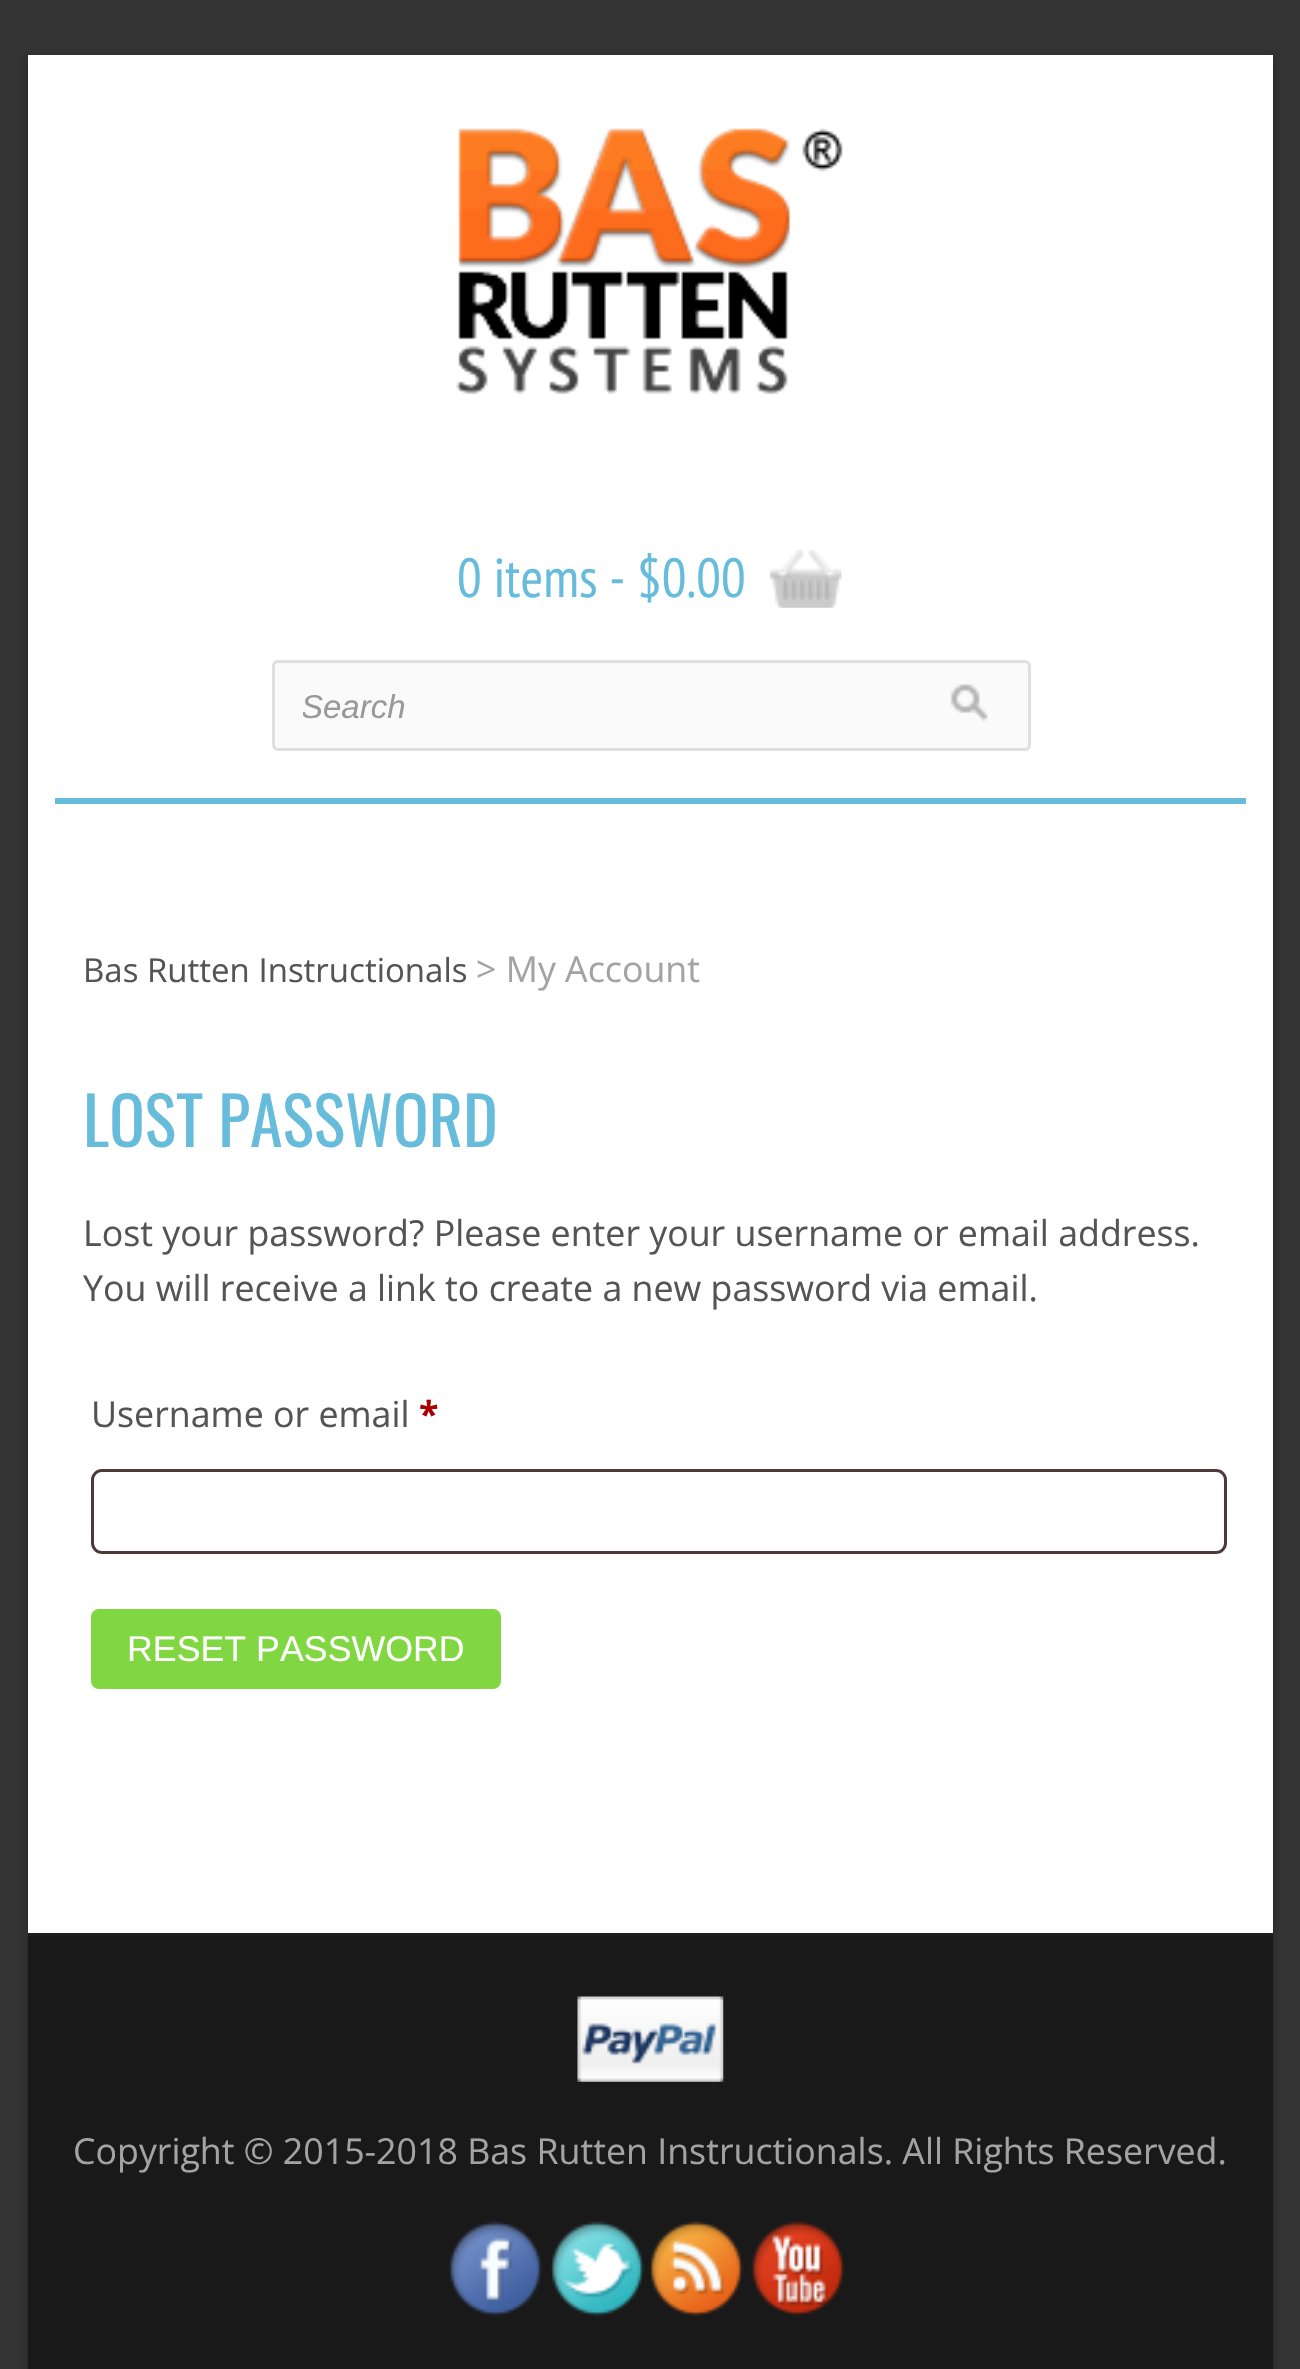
void draw(SkCanvas* canvas) {
  SkPaint paint;
  paint.setAntiAlias(true);
  auto face = [&](const char* family, int weight, float size, bool italic = false) {
    SkFontStyle style(weight, SkFontStyle::kNormal_Width,
      italic ? SkFontStyle::kItalic_Slant : SkFontStyle::kUpright_Slant);
    SkFont result(fontMgr->matchFamilyStyle(family, style), size);
    result.setSubpixel(true);
    return result;
  };
  auto paste = [&](const char* path, float x, float y, float w, float h) {
    auto image = SkImages::DeferredFromEncodedData(SkData::MakeFromFileName(path));
    canvas->drawImageRect(image, SkRect::MakeXYWH(x, y, w, h), SkSamplingOptions());
  };
  canvas->clear(0xff333333);
  paint.setColor(0x4d000000);
  paint.setMaskFilter(SkMaskFilter::MakeBlur(kNormal_SkBlurStyle, 4));
  canvas->drawRect(SkRect::MakeXYWH(28, 58, 1245, 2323), paint);
  paint.setMaskFilter(nullptr);
  paint.setColor(0xffffffff);
  canvas->drawRect(SkRect::MakeXYWH(28, 55, 1245, 1878), paint);
  paste("img/1.png", 455, 128, 388, 267);
  paste("img/2.png", 770, 550, 72, 58);
  paint.setColor(0xfffafafa);
  canvas->drawRoundRect(SkRect::MakeXYWH(273.5f, 661.5f, 756, 88), 4.5f, 4.5f, paint);
  paint.setStroke(true);
  paint.setStrokeWidth(3);
  paint.setColor(0xffdfdfdf);
  canvas->drawRoundRect(SkRect::MakeXYWH(273.5f, 661.5f, 756, 88), 4.5f, 4.5f, paint);
  paste("img/3.png", 950, 684, 40, 38);
  paint.setStroke(false);
  paint.setColor(0xff66bcda);
  canvas->drawRect(SkRect::MakeXYWH(55, 798, 1191, 6), paint);
  paint.setStroke(true);
  paint.setColor(0xff4d3939);
  canvas->drawRoundRect(SkRect::MakeXYWH(92.5f, 1470.5f, 1133, 82), 9.5f, 9.5f, paint);
  paint.setStroke(false);
  paint.setColor(0xff81d742);
  canvas->drawRoundRect(SkRect::MakeXYWH(91, 1609, 410, 80), 8, 8, paint);
  paint.setColor(0xff191919);
  canvas->drawRect(SkRect::MakeXYWH(28, 1936, 1245, 433), paint);
  paint.setColor(0xff1f1f1f);
  canvas->drawRect(SkRect::MakeXYWH(28, 1933, 1245, 3), paint);
  paste("img/4.png", 577, 1996, 147, 86);
  paste("img/5.png", 448, 2221, 95, 96);
  paste("img/6.png", 550, 2221, 95, 96);
  paste("img/7.png", 649, 2221, 95, 96);
  paste("img/8.png", 751, 2221, 94, 95);
  auto f0 = face("PT Sans Narrow", 400, 55);
  paint.setColor(0xff66bcda);
  canvas->drawString("0 items - $0.00", 457, 597, f0, paint);
  canvas->save();
  canvas->clipRect(SkRect::MakeXYWH(303, 688, 726, 38));
  auto f1 = face("Liberation Sans", 400, 33, true);
  paint.setColor(0xff999999);
  canvas->drawString("Search", 301, 718, f1, paint);
  canvas->restore();
  auto f2 = face("Open Sans", 400, 33);
  paint.setColor(0xff545454);
  canvas->drawString("Bas Rutten Instructionals", 83, 982, f2, paint);
  auto f3 = face("Open Sans", 400, 35.75f);
  paint.setColor(0xffa3a3a3);
  canvas->drawString("> My Account", 476, 982, f3, paint);
  auto f4 = face("Oswald", 400, 66);
  paint.setColor(0xff66bcda);
  canvas->drawString("LOST PASSWORD", 83, 1147, f4, paint);
  paint.setColor(0xff545454);
  {
    const struct { const char* s; float x, y; } items[] = {
      {"Lost your password? Please enter your username or email address.", 83, 1246},
      {"You will receive a link to create a new password via email.", 83, 1301},
      {"Username or email", 91, 1427},
    };
    for (auto [s, x, y] : items) {
      canvas->drawString(s, x, y, f3, paint);
    }
  }
  auto f5 = face("Open Sans", 700, 35.75f);
  paint.setColor(0xffaa0000);
  canvas->drawString("*", 419, 1427, f5, paint);
  auto f6 = face("Liberation Sans", 400, 35.75f);
  paint.setColor(0xffffffff);
  canvas->drawString("RESET PASSWORD", 127, 1661, f6, paint);
  paint.setColor(0xffa3a3a3);
  canvas->drawString("Copyright © 2015-2018 Bas Rutten Instructionals. All Rights Reserved.", 73, 2164, f3, paint);
}
